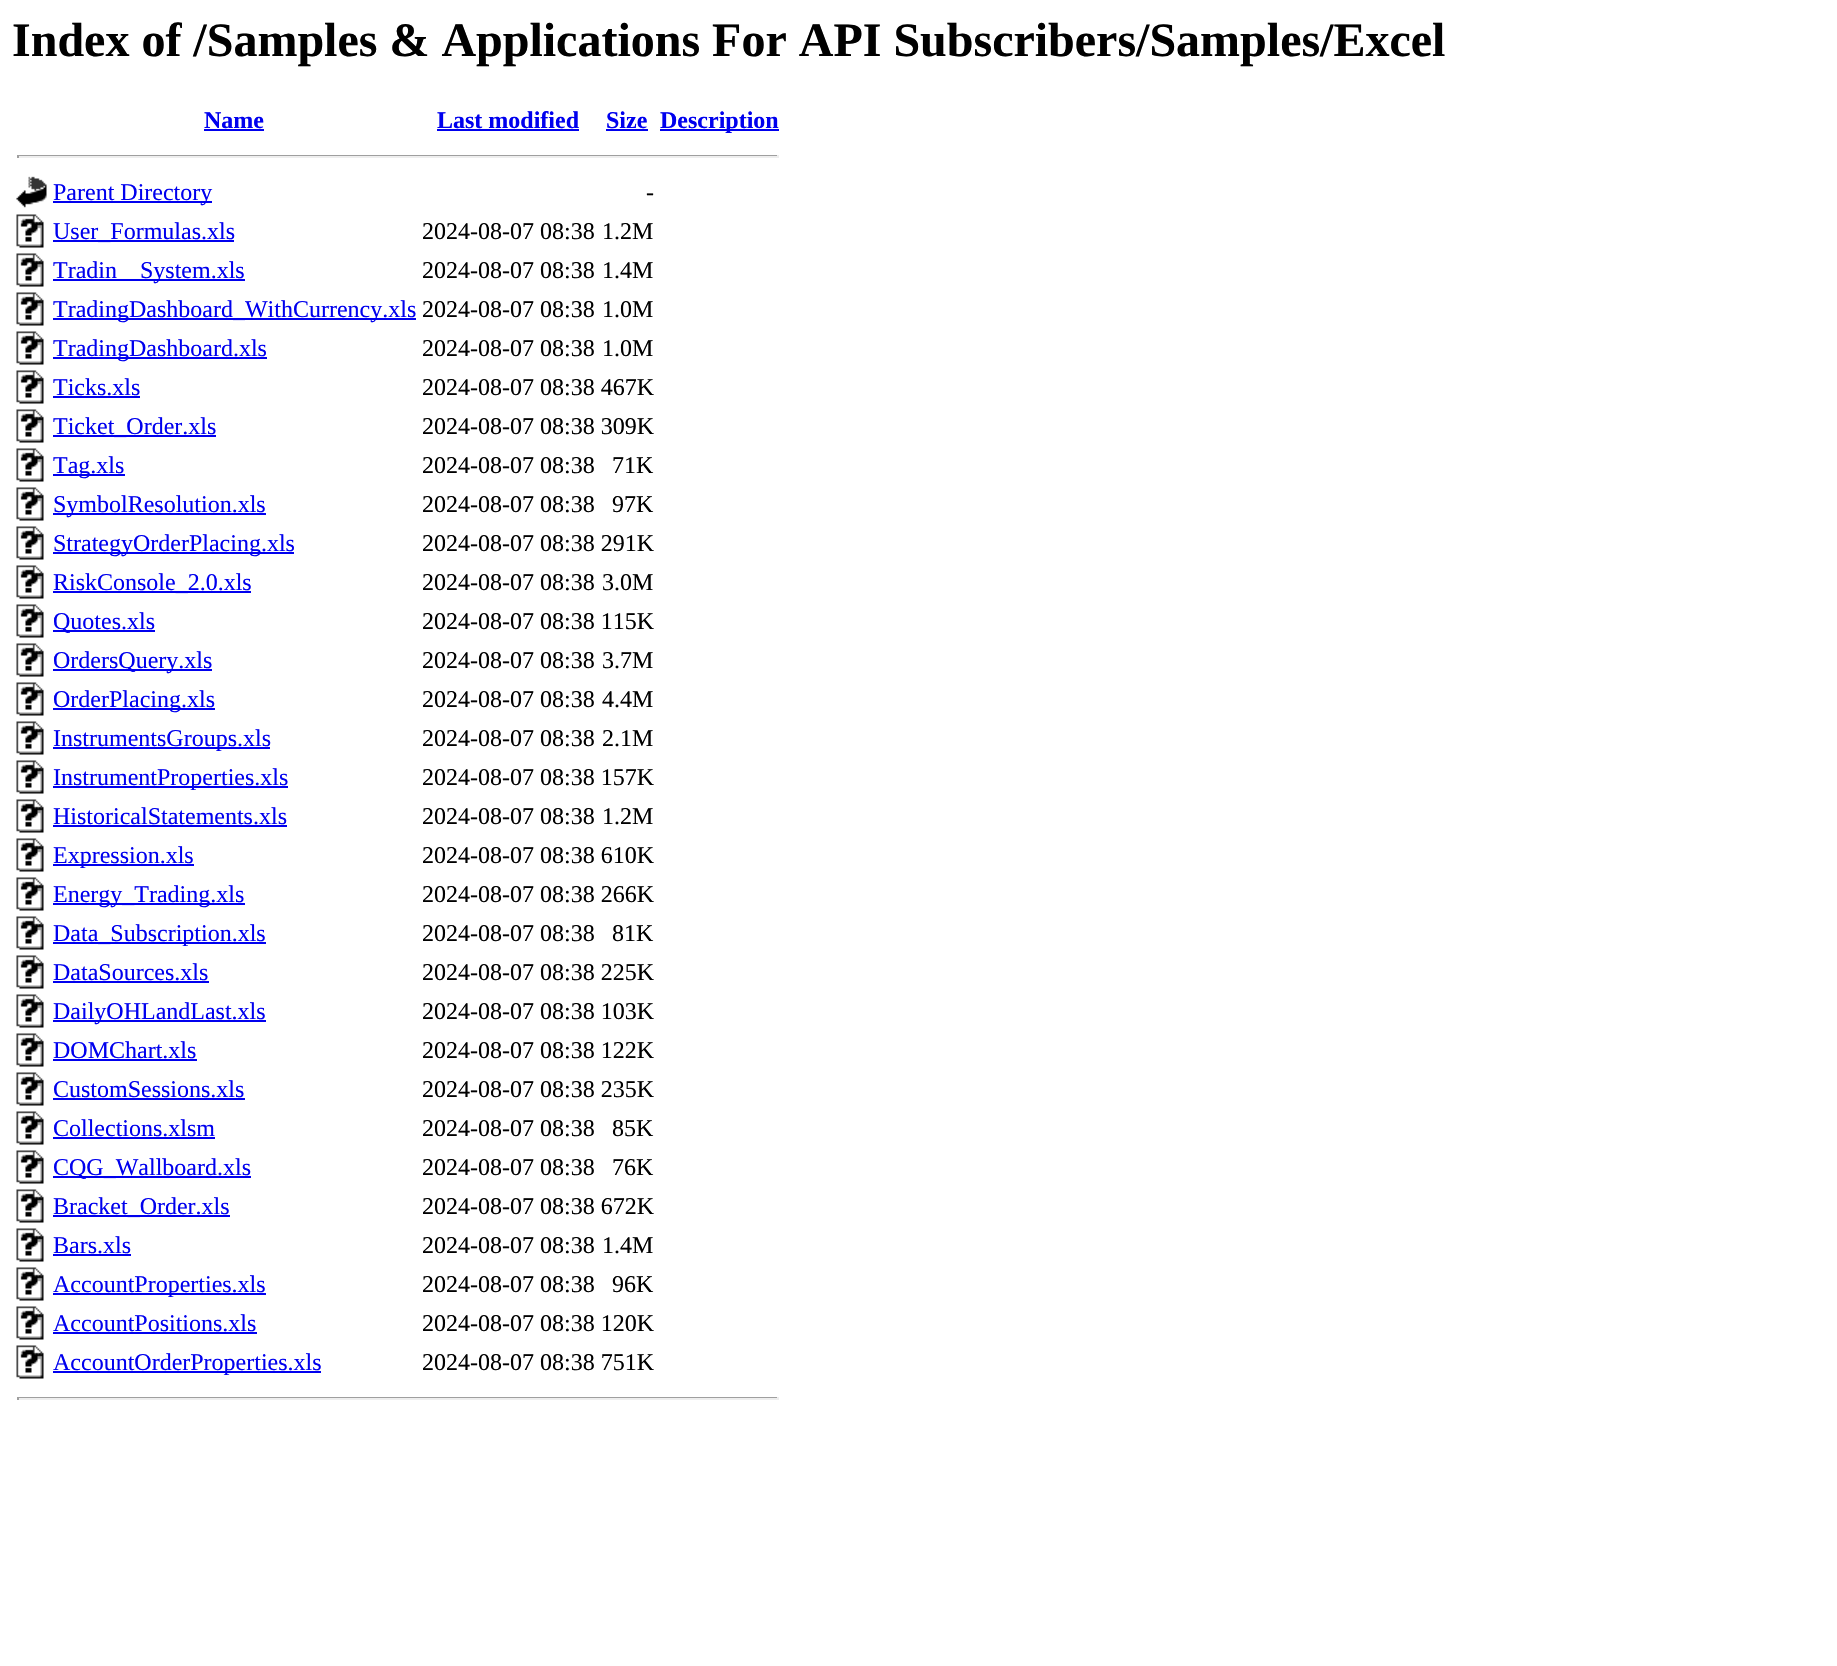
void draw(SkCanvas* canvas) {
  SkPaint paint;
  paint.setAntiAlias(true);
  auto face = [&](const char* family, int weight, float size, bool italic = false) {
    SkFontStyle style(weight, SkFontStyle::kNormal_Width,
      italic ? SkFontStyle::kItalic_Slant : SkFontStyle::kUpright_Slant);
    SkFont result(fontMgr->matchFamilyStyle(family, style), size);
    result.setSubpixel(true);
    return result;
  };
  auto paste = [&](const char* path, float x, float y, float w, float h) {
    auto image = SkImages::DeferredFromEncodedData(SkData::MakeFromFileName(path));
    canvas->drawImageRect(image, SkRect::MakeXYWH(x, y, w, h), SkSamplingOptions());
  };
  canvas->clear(0xffffffff);
  {
    const struct { float x, y, w, h; SkColor color; } items[] = {
      {204, 129, 60, 2, 0xff0000ee},
      {437, 129, 142, 2, 0xff0000ee},
      {606, 129, 42, 2, 0xff0000ee},
      {660, 129, 119, 2, 0xff0000ee},
      {17, 155, 762, 1, 0xff9f9f9f},
      {777, 155, 2, 3, 0xffeeeeee},
      {17, 156, 762, 2, 0xffeeeeee},
      {17, 155, 2, 3, 0xff9f9f9f},
    };
    for (auto [x, y, w, h, color] : items) {
      paint.setColor(color);
      canvas->drawRect(SkRect::MakeXYWH(x, y, w, h), paint);
    }
  }
  paste("img/1.png", 16, 176, 31, 32);
  paint.setColor(0xff0000ee);
  canvas->drawRect(SkRect::MakeXYWH(53, 201, 159, 2), paint);
  paste("img/2.png", 16, 214, 28, 34);
  canvas->drawRect(SkRect::MakeXYWH(53, 240, 181, 2), paint);
  paste("img/2.png", 16, 253, 28, 34);
  canvas->drawRect(SkRect::MakeXYWH(53, 279, 192, 2), paint);
  paste("img/2.png", 16, 292, 28, 34);
  canvas->drawRect(SkRect::MakeXYWH(53, 318, 363, 2), paint);
  paste("img/2.png", 16, 331, 28, 34);
  canvas->drawRect(SkRect::MakeXYWH(53, 357, 214, 2), paint);
  paste("img/2.png", 16, 370, 28, 34);
  canvas->drawRect(SkRect::MakeXYWH(53, 396, 87, 2), paint);
  paste("img/2.png", 16, 409, 28, 34);
  canvas->drawRect(SkRect::MakeXYWH(53, 435, 163, 2), paint);
  paste("img/2.png", 16, 448, 28, 34);
  canvas->drawRect(SkRect::MakeXYWH(53, 474, 72, 2), paint);
  paste("img/2.png", 16, 487, 28, 34);
  canvas->drawRect(SkRect::MakeXYWH(53, 513, 213, 2), paint);
  paste("img/2.png", 16, 526, 28, 34);
  canvas->drawRect(SkRect::MakeXYWH(53, 552, 241, 2), paint);
  paste("img/2.png", 16, 565, 28, 34);
  canvas->drawRect(SkRect::MakeXYWH(53, 591, 198, 2), paint);
  paste("img/2.png", 16, 604, 28, 34);
  canvas->drawRect(SkRect::MakeXYWH(53, 630, 102, 2), paint);
  paste("img/2.png", 16, 643, 28, 34);
  canvas->drawRect(SkRect::MakeXYWH(53, 669, 159, 2), paint);
  paste("img/2.png", 16, 682, 28, 34);
  canvas->drawRect(SkRect::MakeXYWH(53, 708, 162, 2), paint);
  paste("img/2.png", 16, 721, 28, 34);
  canvas->drawRect(SkRect::MakeXYWH(53, 747, 217, 2), paint);
  paste("img/2.png", 16, 760, 28, 34);
  canvas->drawRect(SkRect::MakeXYWH(53, 786, 235, 2), paint);
  paste("img/2.png", 16, 799, 28, 34);
  canvas->drawRect(SkRect::MakeXYWH(53, 825, 234, 2), paint);
  paste("img/2.png", 16, 838, 28, 34);
  canvas->drawRect(SkRect::MakeXYWH(53, 864, 141, 2), paint);
  paste("img/2.png", 16, 877, 28, 34);
  canvas->drawRect(SkRect::MakeXYWH(53, 903, 192, 2), paint);
  paste("img/2.png", 16, 916, 28, 34);
  canvas->drawRect(SkRect::MakeXYWH(53, 942, 213, 2), paint);
  paste("img/2.png", 16, 955, 28, 34);
  canvas->drawRect(SkRect::MakeXYWH(53, 981, 156, 2), paint);
  paste("img/2.png", 16, 994, 28, 34);
  canvas->drawRect(SkRect::MakeXYWH(53, 1020, 213, 2), paint);
  paste("img/2.png", 16, 1033, 28, 34);
  canvas->drawRect(SkRect::MakeXYWH(53, 1059, 144, 2), paint);
  paste("img/2.png", 16, 1072, 28, 34);
  canvas->drawRect(SkRect::MakeXYWH(53, 1098, 192, 2), paint);
  paste("img/2.png", 16, 1111, 28, 34);
  canvas->drawRect(SkRect::MakeXYWH(53, 1137, 162, 2), paint);
  paste("img/2.png", 16, 1150, 28, 34);
  canvas->drawRect(SkRect::MakeXYWH(53, 1176, 198, 2), paint);
  paste("img/2.png", 16, 1189, 28, 34);
  canvas->drawRect(SkRect::MakeXYWH(53, 1215, 177, 2), paint);
  paste("img/2.png", 16, 1228, 28, 34);
  canvas->drawRect(SkRect::MakeXYWH(53, 1254, 78, 2), paint);
  paste("img/2.png", 16, 1267, 28, 34);
  canvas->drawRect(SkRect::MakeXYWH(53, 1293, 213, 2), paint);
  paste("img/2.png", 16, 1306, 28, 34);
  canvas->drawRect(SkRect::MakeXYWH(53, 1332, 204, 2), paint);
  paste("img/2.png", 16, 1345, 28, 34);
  {
    const struct { float x, y, w, h; SkColor color; } items[] = {
      {53, 1371, 268, 2, 0xff0000ee},
      {17, 1397, 762, 1, 0xff9f9f9f},
      {777, 1397, 2, 3, 0xffeeeeee},
      {17, 1398, 762, 2, 0xffeeeeee},
      {17, 1397, 2, 3, 0xff9f9f9f},
    };
    for (auto [x, y, w, h, color] : items) {
      paint.setColor(color);
      canvas->drawRect(SkRect::MakeXYWH(x, y, w, h), paint);
    }
  }
  auto f0 = face("Liberation Serif", 700, 48);
  paint.setColor(0xff000000);
  canvas->drawString("Index of /Samples & Applications For API Subscribers/Samples/Excel", 12, 56, f0, paint);
  auto f1 = face("Liberation Serif", 700, 24);
  paint.setColor(0xff0000ee);
  {
    const struct { const char* s; float x, y; } items[] = {
      {"Name", 204, 128},
      {"Last modified", 437, 128},
      {"Size", 606, 128},
      {"Description", 660, 128},
    };
    for (auto [s, x, y] : items) {
      canvas->drawString(s, x, y, f1, paint);
    }
  }
  auto f2 = face("Liberation Serif", 400, 24);
  canvas->drawString("Parent Directory", 53, 200, f2, paint);
  paint.setColor(0xff000000);
  canvas->drawString("-", 646, 200, f2, paint);
  paint.setColor(0xff0000ee);
  canvas->drawString("User_Formulas.xls", 53, 239, f2, paint);
  paint.setColor(0xff000000);
  canvas->drawString("2024-08-07 08:38", 422, 239, f2, paint);
  canvas->drawString("1.2M", 602, 239, f2, paint);
  paint.setColor(0xff0000ee);
  canvas->drawString("Tradin", 53, 278, f2, paint);
  canvas->drawString("System.xls", 140, 278, f2, paint);
  paint.setColor(0xff000000);
  canvas->drawString("2024-08-07 08:38", 422, 278, f2, paint);
  canvas->drawString("1.4M", 602, 278, f2, paint);
  paint.setColor(0xff0000ee);
  canvas->drawString("TradingDashboard_WithCurrency.xls", 53, 317, f2, paint);
  paint.setColor(0xff000000);
  canvas->drawString("2024-08-07 08:38", 422, 317, f2, paint);
  canvas->drawString("1.0M", 602, 317, f2, paint);
  paint.setColor(0xff0000ee);
  canvas->drawString("TradingDashboard.xls", 53, 356, f2, paint);
  paint.setColor(0xff000000);
  canvas->drawString("2024-08-07 08:38", 422, 356, f2, paint);
  canvas->drawString("1.0M", 602, 356, f2, paint);
  paint.setColor(0xff0000ee);
  canvas->drawString("Ticks.xls", 53, 395, f2, paint);
  paint.setColor(0xff000000);
  canvas->drawString("2024-08-07 08:38 467K", 422, 395, f2, paint);
  paint.setColor(0xff0000ee);
  canvas->drawString("Ticket_Order.xls", 53, 434, f2, paint);
  paint.setColor(0xff000000);
  canvas->drawString("2024-08-07 08:38 309K", 422, 434, f2, paint);
  paint.setColor(0xff0000ee);
  canvas->drawString("Tag.xls", 53, 473, f2, paint);
  paint.setColor(0xff000000);
  canvas->drawString("2024-08-07 08:38", 422, 473, f2, paint);
  canvas->drawString("71K", 612, 473, f2, paint);
  paint.setColor(0xff0000ee);
  canvas->drawString("SymbolResolution.xls", 53, 512, f2, paint);
  paint.setColor(0xff000000);
  canvas->drawString("2024-08-07 08:38", 422, 512, f2, paint);
  canvas->drawString("97K", 612, 512, f2, paint);
  paint.setColor(0xff0000ee);
  canvas->drawString("StrategyOrderPlacing.xls", 53, 551, f2, paint);
  paint.setColor(0xff000000);
  canvas->drawString("2024-08-07 08:38 291K", 422, 551, f2, paint);
  paint.setColor(0xff0000ee);
  canvas->drawString("RiskConsole_2.0.xls", 53, 590, f2, paint);
  paint.setColor(0xff000000);
  canvas->drawString("2024-08-07 08:38", 422, 590, f2, paint);
  canvas->drawString("3.0M", 602, 590, f2, paint);
  paint.setColor(0xff0000ee);
  canvas->drawString("Quotes.xls", 53, 629, f2, paint);
  paint.setColor(0xff000000);
  canvas->drawString("2024-08-07 08:38 115K", 422, 629, f2, paint);
  paint.setColor(0xff0000ee);
  canvas->drawString("OrdersQuery.xls", 53, 668, f2, paint);
  paint.setColor(0xff000000);
  canvas->drawString("2024-08-07 08:38", 422, 668, f2, paint);
  canvas->drawString("3.7M", 602, 668, f2, paint);
  paint.setColor(0xff0000ee);
  canvas->drawString("OrderPlacing.xls", 53, 707, f2, paint);
  paint.setColor(0xff000000);
  canvas->drawString("2024-08-07 08:38", 422, 707, f2, paint);
  canvas->drawString("4.4M", 602, 707, f2, paint);
  paint.setColor(0xff0000ee);
  canvas->drawString("InstrumentsGroups.xls", 53, 746, f2, paint);
  paint.setColor(0xff000000);
  canvas->drawString("2024-08-07 08:38", 422, 746, f2, paint);
  canvas->drawString("2.1M", 602, 746, f2, paint);
  paint.setColor(0xff0000ee);
  canvas->drawString("InstrumentProperties.xls", 53, 785, f2, paint);
  paint.setColor(0xff000000);
  canvas->drawString("2024-08-07 08:38 157K", 422, 785, f2, paint);
  paint.setColor(0xff0000ee);
  canvas->drawString("HistoricalStatements.xls", 53, 824, f2, paint);
  paint.setColor(0xff000000);
  canvas->drawString("2024-08-07 08:38", 422, 824, f2, paint);
  canvas->drawString("1.2M", 602, 824, f2, paint);
  paint.setColor(0xff0000ee);
  canvas->drawString("Expression.xls", 53, 863, f2, paint);
  paint.setColor(0xff000000);
  canvas->drawString("2024-08-07 08:38 610K", 422, 863, f2, paint);
  paint.setColor(0xff0000ee);
  canvas->drawString("Energy_Trading.xls", 53, 902, f2, paint);
  paint.setColor(0xff000000);
  canvas->drawString("2024-08-07 08:38 266K", 422, 902, f2, paint);
  paint.setColor(0xff0000ee);
  canvas->drawString("Data_Subscription.xls", 53, 941, f2, paint);
  paint.setColor(0xff000000);
  canvas->drawString("2024-08-07 08:38", 422, 941, f2, paint);
  canvas->drawString("81K", 612, 941, f2, paint);
  paint.setColor(0xff0000ee);
  canvas->drawString("DataSources.xls", 53, 980, f2, paint);
  paint.setColor(0xff000000);
  canvas->drawString("2024-08-07 08:38 225K", 422, 980, f2, paint);
  paint.setColor(0xff0000ee);
  canvas->drawString("DailyOHLandLast.xls", 53, 1019, f2, paint);
  paint.setColor(0xff000000);
  canvas->drawString("2024-08-07 08:38 103K", 422, 1019, f2, paint);
  paint.setColor(0xff0000ee);
  canvas->drawString("DOMChart.xls", 53, 1058, f2, paint);
  paint.setColor(0xff000000);
  canvas->drawString("2024-08-07 08:38 122K", 422, 1058, f2, paint);
  paint.setColor(0xff0000ee);
  canvas->drawString("CustomSessions.xls", 53, 1097, f2, paint);
  paint.setColor(0xff000000);
  canvas->drawString("2024-08-07 08:38 235K", 422, 1097, f2, paint);
  paint.setColor(0xff0000ee);
  canvas->drawString("Collections.xlsm", 53, 1136, f2, paint);
  paint.setColor(0xff000000);
  canvas->drawString("2024-08-07 08:38", 422, 1136, f2, paint);
  canvas->drawString("85K", 612, 1136, f2, paint);
  paint.setColor(0xff0000ee);
  canvas->drawString("CQG_Wallboard.xls", 53, 1175, f2, paint);
  paint.setColor(0xff000000);
  canvas->drawString("2024-08-07 08:38", 422, 1175, f2, paint);
  canvas->drawString("76K", 612, 1175, f2, paint);
  paint.setColor(0xff0000ee);
  canvas->drawString("Bracket_Order.xls", 53, 1214, f2, paint);
  paint.setColor(0xff000000);
  canvas->drawString("2024-08-07 08:38 672K", 422, 1214, f2, paint);
  paint.setColor(0xff0000ee);
  canvas->drawString("Bars.xls", 53, 1253, f2, paint);
  paint.setColor(0xff000000);
  canvas->drawString("2024-08-07 08:38", 422, 1253, f2, paint);
  canvas->drawString("1.4M", 602, 1253, f2, paint);
  paint.setColor(0xff0000ee);
  canvas->drawString("AccountProperties.xls", 53, 1292, f2, paint);
  paint.setColor(0xff000000);
  canvas->drawString("2024-08-07 08:38", 422, 1292, f2, paint);
  canvas->drawString("96K", 612, 1292, f2, paint);
  paint.setColor(0xff0000ee);
  canvas->drawString("AccountPositions.xls", 53, 1331, f2, paint);
  paint.setColor(0xff000000);
  canvas->drawString("2024-08-07 08:38 120K", 422, 1331, f2, paint);
  paint.setColor(0xff0000ee);
  canvas->drawString("AccountOrderProperties.xls", 53, 1370, f2, paint);
  paint.setColor(0xff000000);
  canvas->drawString("2024-08-07 08:38 751K", 422, 1370, f2, paint);
}
